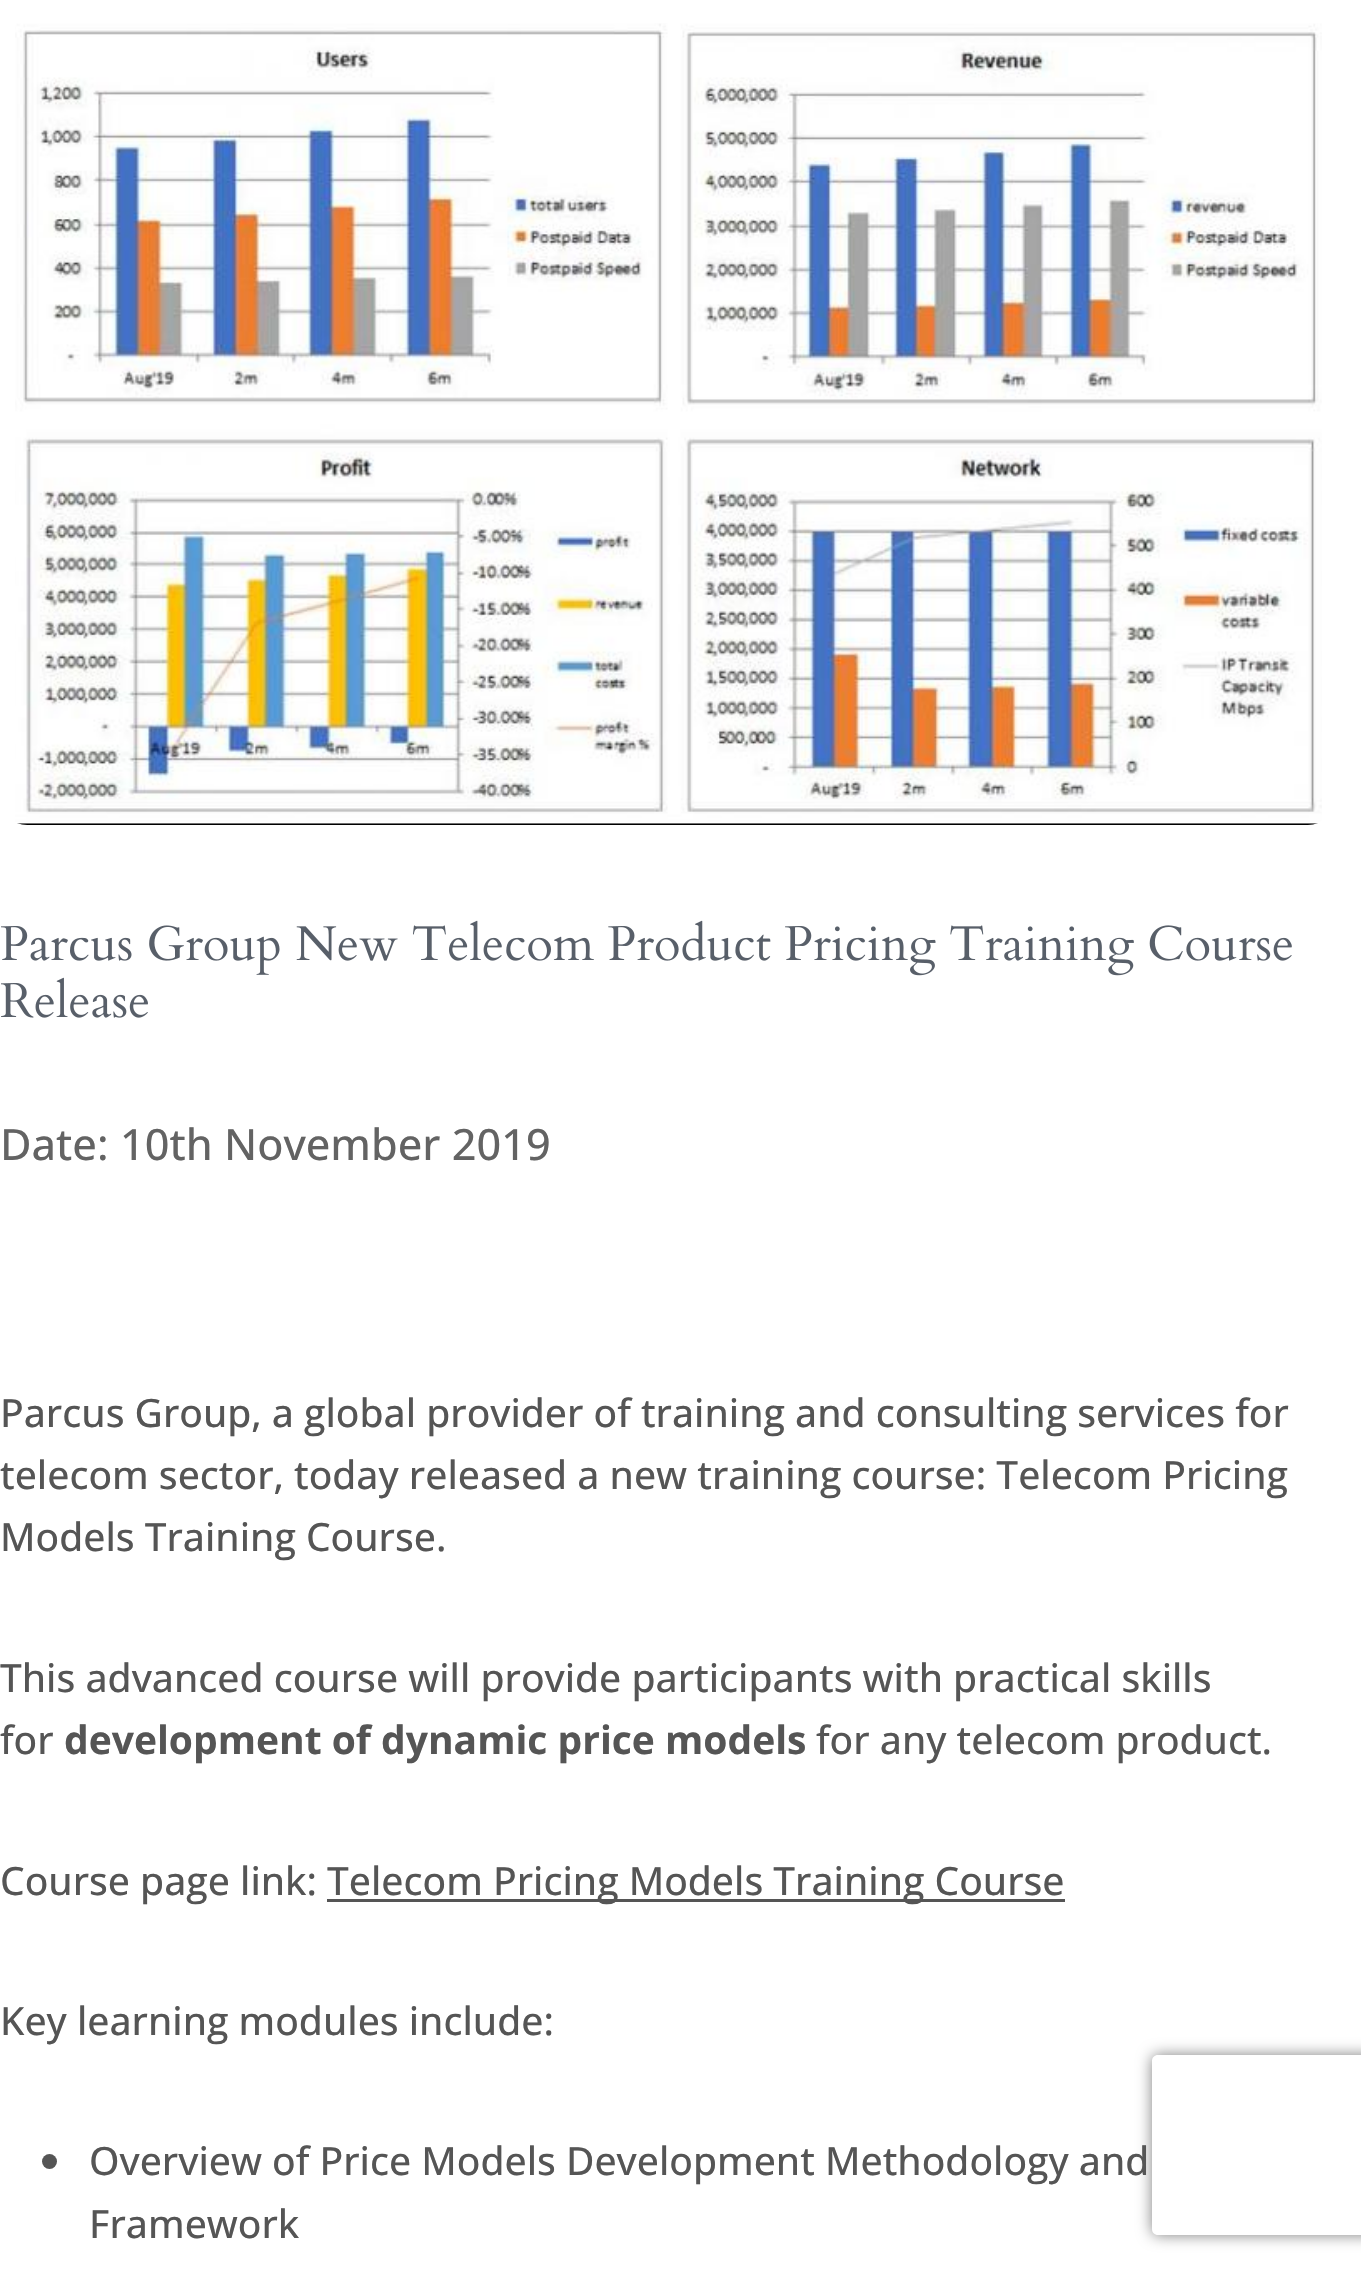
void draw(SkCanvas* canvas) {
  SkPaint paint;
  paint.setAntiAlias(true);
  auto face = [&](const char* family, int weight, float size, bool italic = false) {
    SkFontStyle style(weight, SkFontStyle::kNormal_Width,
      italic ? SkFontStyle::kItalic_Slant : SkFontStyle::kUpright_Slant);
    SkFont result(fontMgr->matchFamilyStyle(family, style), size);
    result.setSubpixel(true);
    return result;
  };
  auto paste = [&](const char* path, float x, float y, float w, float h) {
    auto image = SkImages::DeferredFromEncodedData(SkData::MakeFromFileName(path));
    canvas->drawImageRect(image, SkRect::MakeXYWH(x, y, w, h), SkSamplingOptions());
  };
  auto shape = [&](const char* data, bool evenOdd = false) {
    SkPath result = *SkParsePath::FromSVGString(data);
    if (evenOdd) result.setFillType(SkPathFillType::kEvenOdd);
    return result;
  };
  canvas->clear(0xffffffff);
  paste("img/1.png", 15, 23, 1307, 802);
  paste("img/2.png", 1, 920, 1291, 56);
  paste("img/3.png", 1, 977, 147, 41);
  paint.setColor(0xff555555);
  canvas->drawRect(SkRect::MakeXYWH(327, 1899, 738, 3), paint);
  canvas->drawCircle(49.5f, 2161.5f, 7.5f, paint);
  canvas->save();
  canvas->clipPath(shape("M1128 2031H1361V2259H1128ZM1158 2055H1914C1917.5 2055 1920 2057.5 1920 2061V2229C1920 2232.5 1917.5 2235 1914 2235H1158C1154.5 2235 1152 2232.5 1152 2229V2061C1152 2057.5 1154.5 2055 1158 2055Z", true), true);
  paint.setColor(0xff808080);
  paint.setMaskFilter(SkMaskFilter::MakeBlur(kNormal_SkBlurStyle, 7.5f));
  canvas->drawRoundRect(SkRect::MakeXYWH(1152, 2055, 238, 180), 6, 6, paint);
  paint.setMaskFilter(nullptr);
  canvas->restore();
  auto f0 = face("Open Sans", 500, 43.25f);
  paint.setColor(0xff636363);
  canvas->drawString("Date:", 0, 1160, f0, paint);
  canvas->drawString("10th November 2019", 120, 1160, f0, paint);
  auto f1 = face("Open Sans", 500, 39);
  paint.setColor(0xff555555);
  {
    const struct { const char* s; float x, y; } items[] = {
      {"Parcus Group, a global provider of training and consulting services for", 0, 1427},
      {"telecom sector, today released a new training course: Telecom Pricing", 0, 1489},
      {"Models Training Course.", 0, 1551},
      {"This advanced course will provide participants with practical skills", 0, 1692},
      {"for", 0, 1754},
    };
    for (auto [s, x, y] : items) {
      canvas->drawString(s, x, y, f1, paint);
    }
  }
  auto f2 = face("Open Sans", 700, 39);
  canvas->drawString("development of dynamic price models", 64, 1754, f2, paint);
  {
    const struct { const char* s; float x, y; } items[] = {
      {"for any telecom product.", 816, 1754},
      {"Course page link:", 0, 1895},
      {"Telecom Pricing Models Training Course", 327, 1895},
      {"Key learning modules include:", 0, 2035},
      {"Overview of Price Models Development Methodology and", 89, 2175},
      {"Framework", 89, 2238},
    };
    for (auto [s, x, y] : items) {
      canvas->drawString(s, x, y, f1, paint);
    }
  }
}
